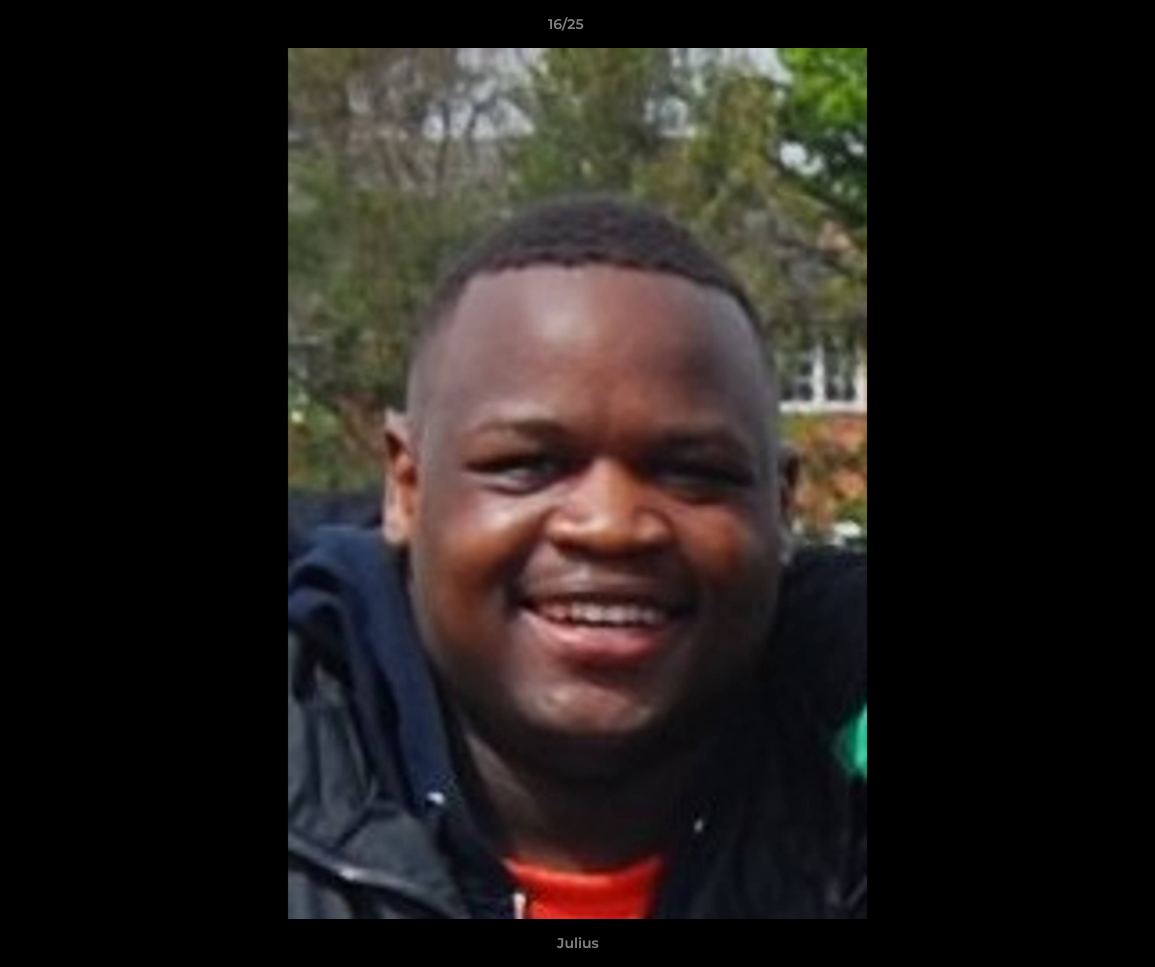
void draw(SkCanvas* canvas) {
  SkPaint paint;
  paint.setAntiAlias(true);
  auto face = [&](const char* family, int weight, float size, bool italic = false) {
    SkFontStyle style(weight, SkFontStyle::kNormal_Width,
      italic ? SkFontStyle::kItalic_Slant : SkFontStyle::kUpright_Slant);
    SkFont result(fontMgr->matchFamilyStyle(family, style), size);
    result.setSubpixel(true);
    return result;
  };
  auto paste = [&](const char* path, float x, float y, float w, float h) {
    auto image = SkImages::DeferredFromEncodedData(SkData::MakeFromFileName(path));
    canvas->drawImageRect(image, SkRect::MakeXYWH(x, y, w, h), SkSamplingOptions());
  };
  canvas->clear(0xff000000);
  paste("img/1.png", 287, 48, 581, 871);
  auto f0 = face("Montserrat", 600, 14);
  paint.setColor(0xff808080);
  canvas->drawString("16/25", 548, 29, f0, paint);
  canvas->drawString("Julius", 557, 948, f0, paint);
}
